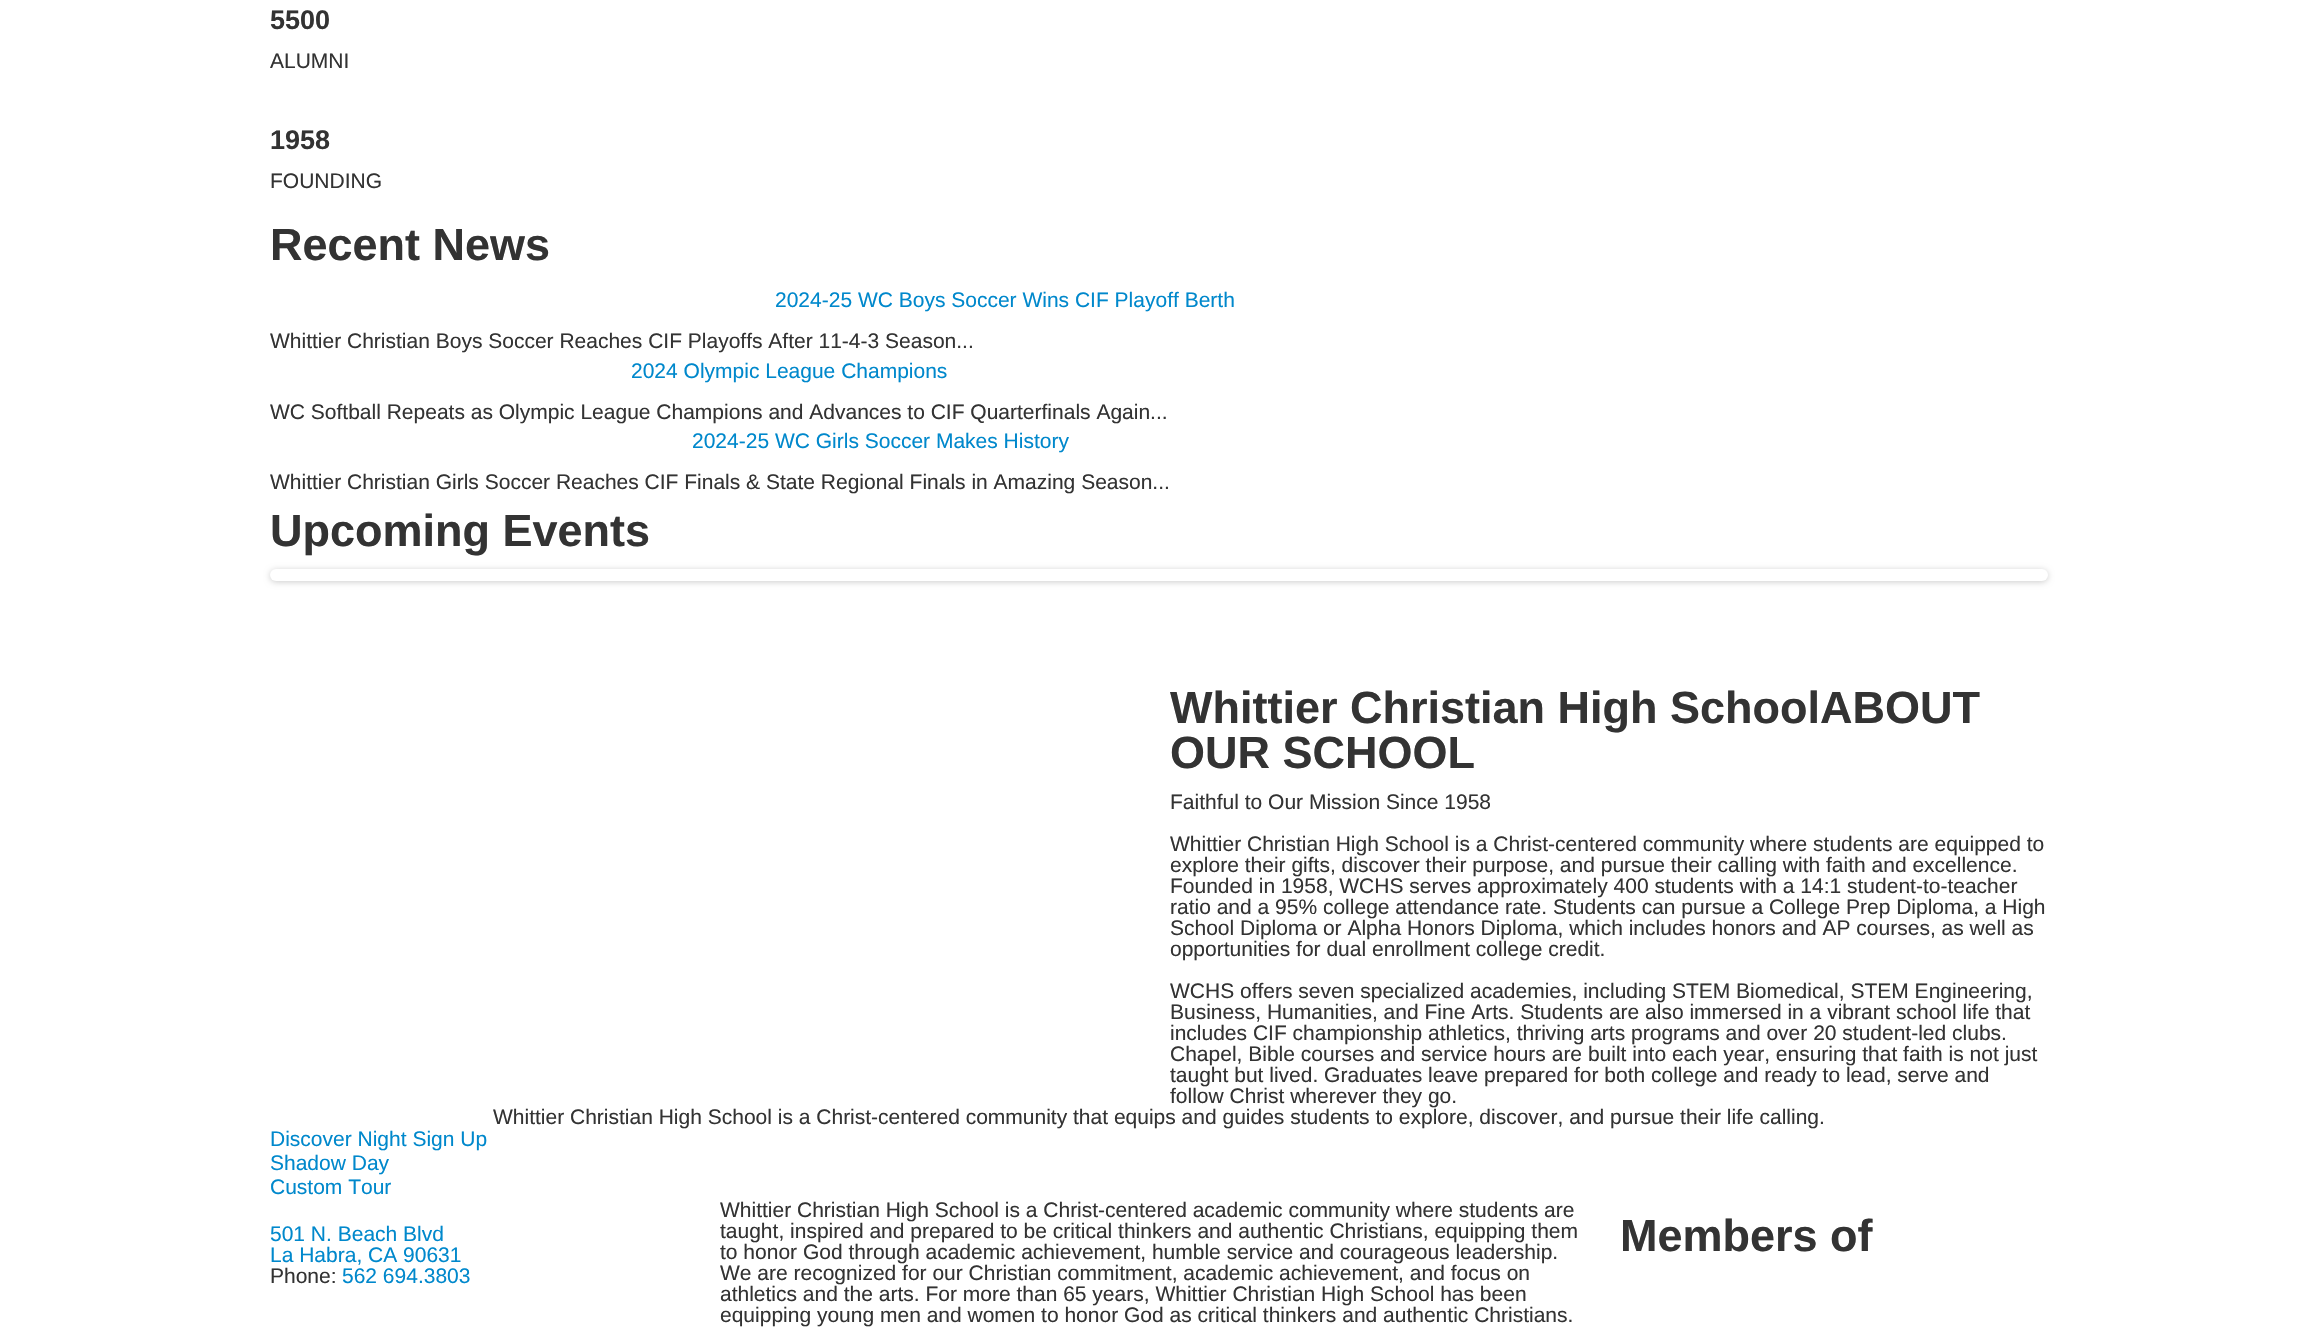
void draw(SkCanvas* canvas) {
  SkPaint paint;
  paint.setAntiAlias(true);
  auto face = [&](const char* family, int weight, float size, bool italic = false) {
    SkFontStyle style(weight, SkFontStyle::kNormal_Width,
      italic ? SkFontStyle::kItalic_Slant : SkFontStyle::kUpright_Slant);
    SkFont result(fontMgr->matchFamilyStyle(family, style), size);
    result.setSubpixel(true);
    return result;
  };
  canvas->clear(0xffffffff);
  paint.setColor(0x33000000);
  paint.setMaskFilter(SkMaskFilter::MakeBlur(kNormal_SkBlurStyle, 3));
  canvas->drawRoundRect(SkRect::MakeXYWH(270, 570, 1778, 12), 6, 6, paint);
  paint.setMaskFilter(nullptr);
  paint.setColor(0xffffffff);
  canvas->drawRoundRect(SkRect::MakeXYWH(270, 569, 1778, 12), 6, 6, paint);
  auto f0 = face("Liberation Sans", 700, 27);
  paint.setColor(0xff333333);
  canvas->drawString("5500", 270, 29, f0, paint);
  auto f1 = face("Liberation Sans", 400, 21);
  canvas->drawString("ALUMNI", 270, 68, f1, paint);
  canvas->drawString("1958", 270, 149, f0, paint);
  canvas->drawString("FOUNDING", 270, 188, f1, paint);
  auto f2 = face("Liberation Sans", 700, 45);
  canvas->drawString("Recent News", 270, 260, f2, paint);
  paint.setColor(0xff0088cc);
  canvas->drawString("2024-25 WC Boys Soccer Wins CIF Playoff Berth", 775, 307, f1, paint);
  paint.setColor(0xff333333);
  canvas->drawString("Whittier Christian Boys Soccer Reaches CIF Playoffs After 11-4-3 Season...", 270, 348, f1, paint);
  paint.setColor(0xff0088cc);
  canvas->drawString("2024 Olympic League Champions", 631, 378, f1, paint);
  paint.setColor(0xff333333);
  canvas->drawString("WC Softball Repeats as Olympic League Champions and Advances to CIF Quarterfinals Again...", 270, 419, f1, paint);
  paint.setColor(0xff0088cc);
  canvas->drawString("2024-25 WC Girls Soccer Makes History", 692, 448, f1, paint);
  paint.setColor(0xff333333);
  canvas->drawString("Whittier Christian Girls Soccer Reaches CIF Finals & State Regional Finals in Amazing Season...", 270, 489, f1, paint);
  {
    const struct { const char* s; float x, y; } items[] = {
      {"Upcoming Events", 270, 546},
      {"Whittier Christian High SchoolABOUT", 1170, 723},
      {"OUR SCHOOL", 1170, 768},
    };
    for (auto [s, x, y] : items) {
      canvas->drawString(s, x, y, f2, paint);
    }
  }
  {
    const struct { const char* s; float x, y; } items[] = {
      {"Faithful to Our Mission Since 1958", 1170, 809},
      {"Whittier Christian High School is a Christ-centered community where students are equipped to", 1170, 851},
      {"explore their gifts, discover their purpose, and pursue their calling with faith and excellence.", 1170, 872},
      {"Founded in 1958, WCHS serves approximately 400 students with a 14:1 student-to-teacher", 1170, 893},
      {"ratio and a 95% college attendance rate. Students can pursue a College Prep Diploma, a High", 1170, 914},
      {"School Diploma or Alpha Honors Diploma, which includes honors and AP courses, as well as", 1170, 935},
      {"opportunities for dual enrollment college credit.", 1170, 956},
      {"WCHS offers seven specialized academies, including STEM Biomedical, STEM Engineering,", 1170, 998},
      {"Business, Humanities, and Fine Arts. Students are also immersed in a vibrant school life that", 1170, 1019},
      {"includes CIF championship athletics, thriving arts programs and over 20 student-led clubs.", 1170, 1040},
      {"Chapel, Bible courses and service hours are built into each year, ensuring that faith is not just", 1170, 1061},
      {"taught but lived. Graduates leave prepared for both college and ready to lead, serve and", 1170, 1082},
      {"follow Christ wherever they go.", 1170, 1103},
      {"Whittier Christian High School is a Christ-centered community that equips and guides students to explore, discover, and pursue their life calling.", 493, 1124},
    };
    for (auto [s, x, y] : items) {
      canvas->drawString(s, x, y, f1, paint);
    }
  }
  paint.setColor(0xff0088cc);
  {
    const struct { const char* s; float x, y; } items[] = {
      {"Discover Night Sign Up", 270, 1146},
      {"Shadow Day", 270, 1170},
      {"Custom Tour", 270, 1194},
      {"501 N. Beach Blvd", 270, 1241},
      {"La Habra, CA 90631", 270, 1262},
    };
    for (auto [s, x, y] : items) {
      canvas->drawString(s, x, y, f1, paint);
    }
  }
  paint.setColor(0xff333333);
  canvas->drawString("Phone:", 270, 1283, f1, paint);
  paint.setColor(0xff0088cc);
  canvas->drawString("562 694.3803", 342, 1283, f1, paint);
  paint.setColor(0xff333333);
  {
    const struct { const char* s; float x, y; } items[] = {
      {"Whittier Christian High School is a Christ-centered academic community where students are", 720, 1217},
      {"taught, inspired and prepared to be critical thinkers and authentic Christians, equipping them", 720, 1238},
      {"to honor God through academic achievement, humble service and courageous leadership.", 720, 1259},
      {"We are recognized for our Christian commitment, academic achievement, and focus on", 720, 1280},
      {"athletics and the arts. For more than 65 years, Whittier Christian High School has been", 720, 1301},
      {"equipping young men and women to honor God as critical thinkers and authentic Christians.", 720, 1322},
    };
    for (auto [s, x, y] : items) {
      canvas->drawString(s, x, y, f1, paint);
    }
  }
  canvas->drawString("Members of", 1620, 1251, f2, paint);
}
